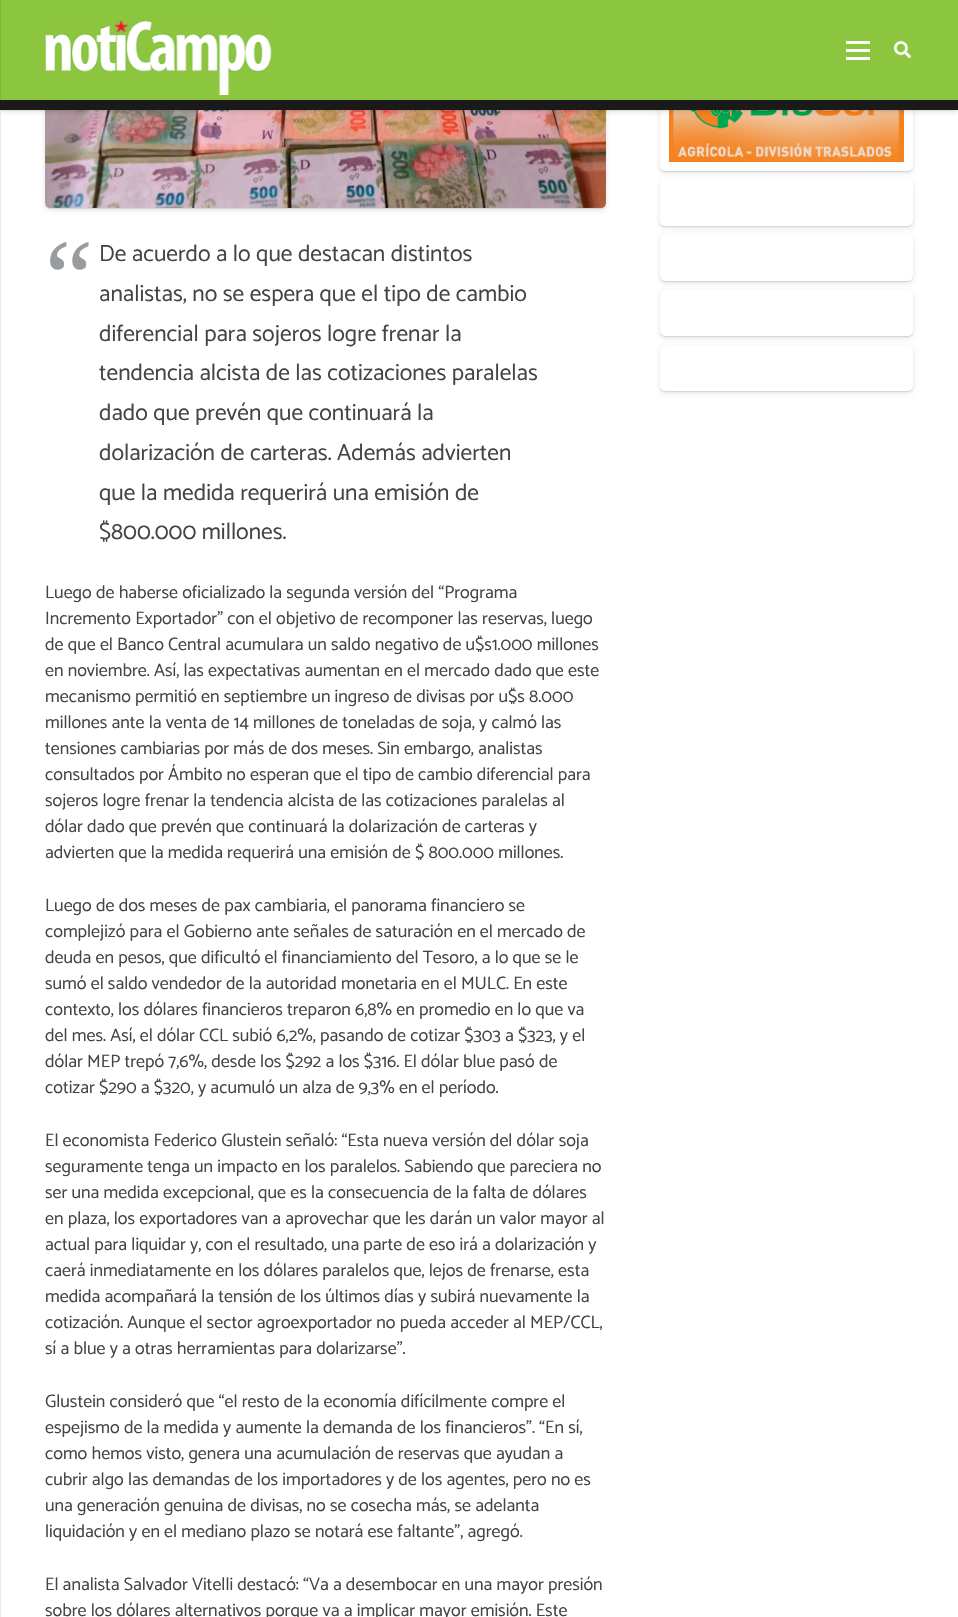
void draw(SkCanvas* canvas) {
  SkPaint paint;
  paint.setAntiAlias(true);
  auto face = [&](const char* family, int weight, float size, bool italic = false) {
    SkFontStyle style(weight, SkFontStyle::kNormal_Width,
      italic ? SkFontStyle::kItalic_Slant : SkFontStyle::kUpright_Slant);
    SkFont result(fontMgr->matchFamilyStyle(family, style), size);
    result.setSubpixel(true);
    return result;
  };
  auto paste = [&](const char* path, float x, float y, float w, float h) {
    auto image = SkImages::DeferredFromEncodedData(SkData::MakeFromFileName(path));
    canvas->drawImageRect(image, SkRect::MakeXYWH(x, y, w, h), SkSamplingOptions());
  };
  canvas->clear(0xffffffff);
  paint.setColor(0x1a000000);
  paint.setMaskFilter(SkMaskFilter::MakeBlur(kNormal_SkBlurStyle, 2.5f));
  canvas->drawRoundRect(SkRect::MakeXYWH(45, -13, 561, 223), 5, 5, paint);
  paint.setMaskFilter(nullptr);
  paint.setMaskFilter(SkMaskFilter::MakeBlur(kNormal_SkBlurStyle, 0.5f));
  canvas->drawRoundRect(SkRect::MakeXYWH(45, -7, 561, 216), 5, 5, paint);
  paint.setMaskFilter(nullptr);
  paint.setMaskFilter(SkMaskFilter::MakeBlur(kNormal_SkBlurStyle, 2.5f));
  canvas->drawRoundRect(SkRect::MakeXYWH(660, 57, 253, 116), 5, 5, paint);
  paint.setMaskFilter(nullptr);
  paint.setMaskFilter(SkMaskFilter::MakeBlur(kNormal_SkBlurStyle, 0.5f));
  canvas->drawRoundRect(SkRect::MakeXYWH(660, 56, 253, 116), 5, 5, paint);
  paint.setMaskFilter(nullptr);
  paint.setColor(0xffffffff);
  canvas->drawRoundRect(SkRect::MakeXYWH(660, 55, 253, 116), 5, 5, paint);
  paint.setColor(0xff8cc63e);
  canvas->drawRect(SkRect::MakeXYWH(0, 0, 958, 100), paint);
  paste("img/3.png", 45, 110, 561, 98);
  paste("img/4.png", 669, 110, 235, 52);
  paint.setColor(0x0d000000);
  paint.setMaskFilter(SkMaskFilter::MakeBlur(kNormal_SkBlurStyle, 0.5f));
  canvas->drawRect(SkRect::MakeXYWH(1, 103, 956, 8), paint);
  paint.setMaskFilter(nullptr);
  paint.setColor(0x1a000000);
  paint.setMaskFilter(SkMaskFilter::MakeBlur(kNormal_SkBlurStyle, 2.5f));
  canvas->drawRect(SkRect::MakeXYWH(1, 104, 956, 8), paint);
  paint.setMaskFilter(nullptr);
  {
    const struct { float x, y, w, h; SkColor color; } items[] = {
      {0, 100, 958, 10, 0xff1a1a1a},
      {0, 0, 1, 1617, 0x14000000},
      {846, 49, 24, 3, 0xffffffff},
      {846, 41, 24, 3, 0xffffffff},
      {846, 57, 24, 3, 0xffffffff},
    };
    for (auto [x, y, w, h, color] : items) {
      paint.setColor(color);
      canvas->drawRect(SkRect::MakeXYWH(x, y, w, h), paint);
    }
  }
  paste("img/1.png", 894, 41, 17, 18);
  paste("img/2.png", 45, 19, 227, 76);
  paint.setColor(0x1a000000);
  paint.setMaskFilter(SkMaskFilter::MakeBlur(kNormal_SkBlurStyle, 2.5f));
  canvas->drawRoundRect(SkRect::MakeXYWH(660, 182, 253, 46), 5, 5, paint);
  paint.setMaskFilter(nullptr);
  paint.setMaskFilter(SkMaskFilter::MakeBlur(kNormal_SkBlurStyle, 0.5f));
  canvas->drawRoundRect(SkRect::MakeXYWH(660, 181, 253, 46), 5, 5, paint);
  paint.setMaskFilter(nullptr);
  paint.setColor(0xffffffff);
  canvas->drawRoundRect(SkRect::MakeXYWH(660, 180, 253, 46), 5, 5, paint);
  paint.setColor(0x1a000000);
  paint.setMaskFilter(SkMaskFilter::MakeBlur(kNormal_SkBlurStyle, 2.5f));
  canvas->drawRoundRect(SkRect::MakeXYWH(660, 237, 253, 46), 5, 5, paint);
  paint.setMaskFilter(nullptr);
  paint.setMaskFilter(SkMaskFilter::MakeBlur(kNormal_SkBlurStyle, 0.5f));
  canvas->drawRoundRect(SkRect::MakeXYWH(660, 236, 253, 46), 5, 5, paint);
  paint.setMaskFilter(nullptr);
  paint.setColor(0xffffffff);
  canvas->drawRoundRect(SkRect::MakeXYWH(660, 235, 253, 46), 5, 5, paint);
  paint.setColor(0x1a000000);
  paint.setMaskFilter(SkMaskFilter::MakeBlur(kNormal_SkBlurStyle, 2.5f));
  canvas->drawRoundRect(SkRect::MakeXYWH(660, 292, 253, 46), 5, 5, paint);
  paint.setMaskFilter(nullptr);
  paint.setMaskFilter(SkMaskFilter::MakeBlur(kNormal_SkBlurStyle, 0.5f));
  canvas->drawRoundRect(SkRect::MakeXYWH(660, 291, 253, 46), 5, 5, paint);
  paint.setMaskFilter(nullptr);
  paint.setColor(0xffffffff);
  canvas->drawRoundRect(SkRect::MakeXYWH(660, 290, 253, 46), 5, 5, paint);
  paint.setColor(0x1a000000);
  paint.setMaskFilter(SkMaskFilter::MakeBlur(kNormal_SkBlurStyle, 2.5f));
  canvas->drawRoundRect(SkRect::MakeXYWH(660, 347, 253, 46), 5, 5, paint);
  paint.setMaskFilter(nullptr);
  paint.setMaskFilter(SkMaskFilter::MakeBlur(kNormal_SkBlurStyle, 0.5f));
  canvas->drawRoundRect(SkRect::MakeXYWH(660, 346, 253, 46), 5, 5, paint);
  paint.setMaskFilter(nullptr);
  paint.setColor(0xffffffff);
  canvas->drawRoundRect(SkRect::MakeXYWH(660, 345, 253, 46), 5, 5, paint);
  auto f0 = face("Liberation Serif", 400, 108);
  paint.setColor(0xff999c9f);
  canvas->drawString("“", 45, 314, f0, paint);
  auto f1 = face("Catamaran", 400, 23.4f);
  paint.setColor(0xff444444);
  {
    const struct { const char* s; float x, y; } items[] = {
      {"De acuerdo a lo que destacan distintos", 99, 261},
      {"analistas, no se espera que el tipo de cambio", 99, 301},
      {"diferencial para sojeros logre frenar la", 99, 341},
      {"tendencia alcista de las cotizaciones paralelas", 99, 380},
      {"dado que prevén que continuará la", 99, 420},
      {"dolarización de carteras. Además advierten", 99, 460},
      {"que la medida requerirá una emisión de", 99, 500},
      {"$800.000 millones.", 99, 539},
    };
    for (auto [s, x, y] : items) {
      canvas->drawString(s, x, y, f1, paint);
    }
  }
  auto f2 = face("Catamaran", 400, 18);
  {
    const struct { const char* s; float x, y; } items[] = {
      {"Luego de haberse oficializado la segunda versión del “Programa", 45, 598},
      {"Incremento Exportador” con el objetivo de recomponer las reservas, luego", 45, 624},
      {"de que el Banco Central acumulara un saldo negativo de u$s1.000 millones", 45, 650},
      {"en noviembre. Así, las expectativas aumentan en el mercado dado que este", 45, 676},
      {"mecanismo permitió en septiembre un ingreso de divisas por u$s 8.000", 45, 702},
      {"millones ante la venta de 14 millones de toneladas de soja, y calmó las", 45, 728},
      {"tensiones cambiarias por más de dos meses. Sin embargo, analistas", 45, 754},
      {"consultados por Ámbito no esperan que el tipo de cambio diferencial para", 45, 780},
      {"sojeros logre frenar la tendencia alcista de las cotizaciones paralelas al", 45, 806},
      {"dólar dado que prevén que continuará la dolarización de carteras y", 45, 832},
      {"advierten que la medida requerirá una emisión de $ 800.000 millones.", 45, 858},
      {"Luego de dos meses de pax cambiaria, el panorama financiero se", 45, 911},
      {"complejizó para el Gobierno ante señales de saturación en el mercado de", 45, 937},
      {"deuda en pesos, que dificultó el financiamiento del Tesoro, a lo que se le", 45, 963},
      {"sumó el saldo vendedor de la autoridad monetaria en el MULC. En este", 45, 989},
      {"contexto, los dólares financieros treparon 6,8% en promedio en lo que va", 45, 1015},
      {"del mes. Así, el dólar CCL subió 6,2%, pasando de cotizar $303 a $323, y el", 45, 1041},
      {"dólar MEP trepó 7,6%, desde los $292 a los $316. El dólar blue pasó de", 45, 1067},
      {"cotizar $290 a $320, y acumuló un alza de 9,3% en el período.", 45, 1093},
      {"El economista Federico Glustein señaló: “Esta nueva versión del dólar soja", 45, 1146},
      {"seguramente tenga un impacto en los paralelos. Sabiendo que pareciera no", 45, 1172},
      {"ser una medida excepcional, que es la consecuencia de la falta de dólares", 45, 1198},
      {"en plaza, los exportadores van a aprovechar que les darán un valor mayor al", 45, 1224},
      {"actual para liquidar y, con el resultado, una parte de eso irá a dolarización y", 45, 1250},
      {"caerá inmediatamente en los dólares paralelos que, lejos de frenarse, esta", 45, 1276},
      {"medida acompañará la tensión de los últimos días y subirá nuevamente la", 45, 1302},
      {"cotización. Aunque el sector agroexportador no pueda acceder al MEP/CCL,", 45, 1328},
      {"sí a blue y a otras herramientas para dolarizarse”.", 45, 1354},
      {"Glustein consideró que “el resto de la economía difícilmente compre el", 45, 1407},
      {"espejismo de la medida y aumente la demanda de los financieros”. “En sí,", 45, 1433},
      {"como hemos visto, genera una acumulación de reservas que ayudan a", 45, 1459},
      {"cubrir algo las demandas de los importadores y de los agentes, pero no es", 45, 1485},
      {"una generación genuina de divisas, no se cosecha más, se adelanta", 45, 1511},
      {"liquidación y en el mediano plazo se notará ese faltante”, agregó.", 45, 1537},
      {"El analista Salvador Vitelli destacó: “Va a desembocar en una mayor presión", 45, 1590},
      {"sobre los dólares alternativos porque va a implicar mayor emisión. Este", 45, 1616},
    };
    for (auto [s, x, y] : items) {
      canvas->drawString(s, x, y, f2, paint);
    }
  }
}
